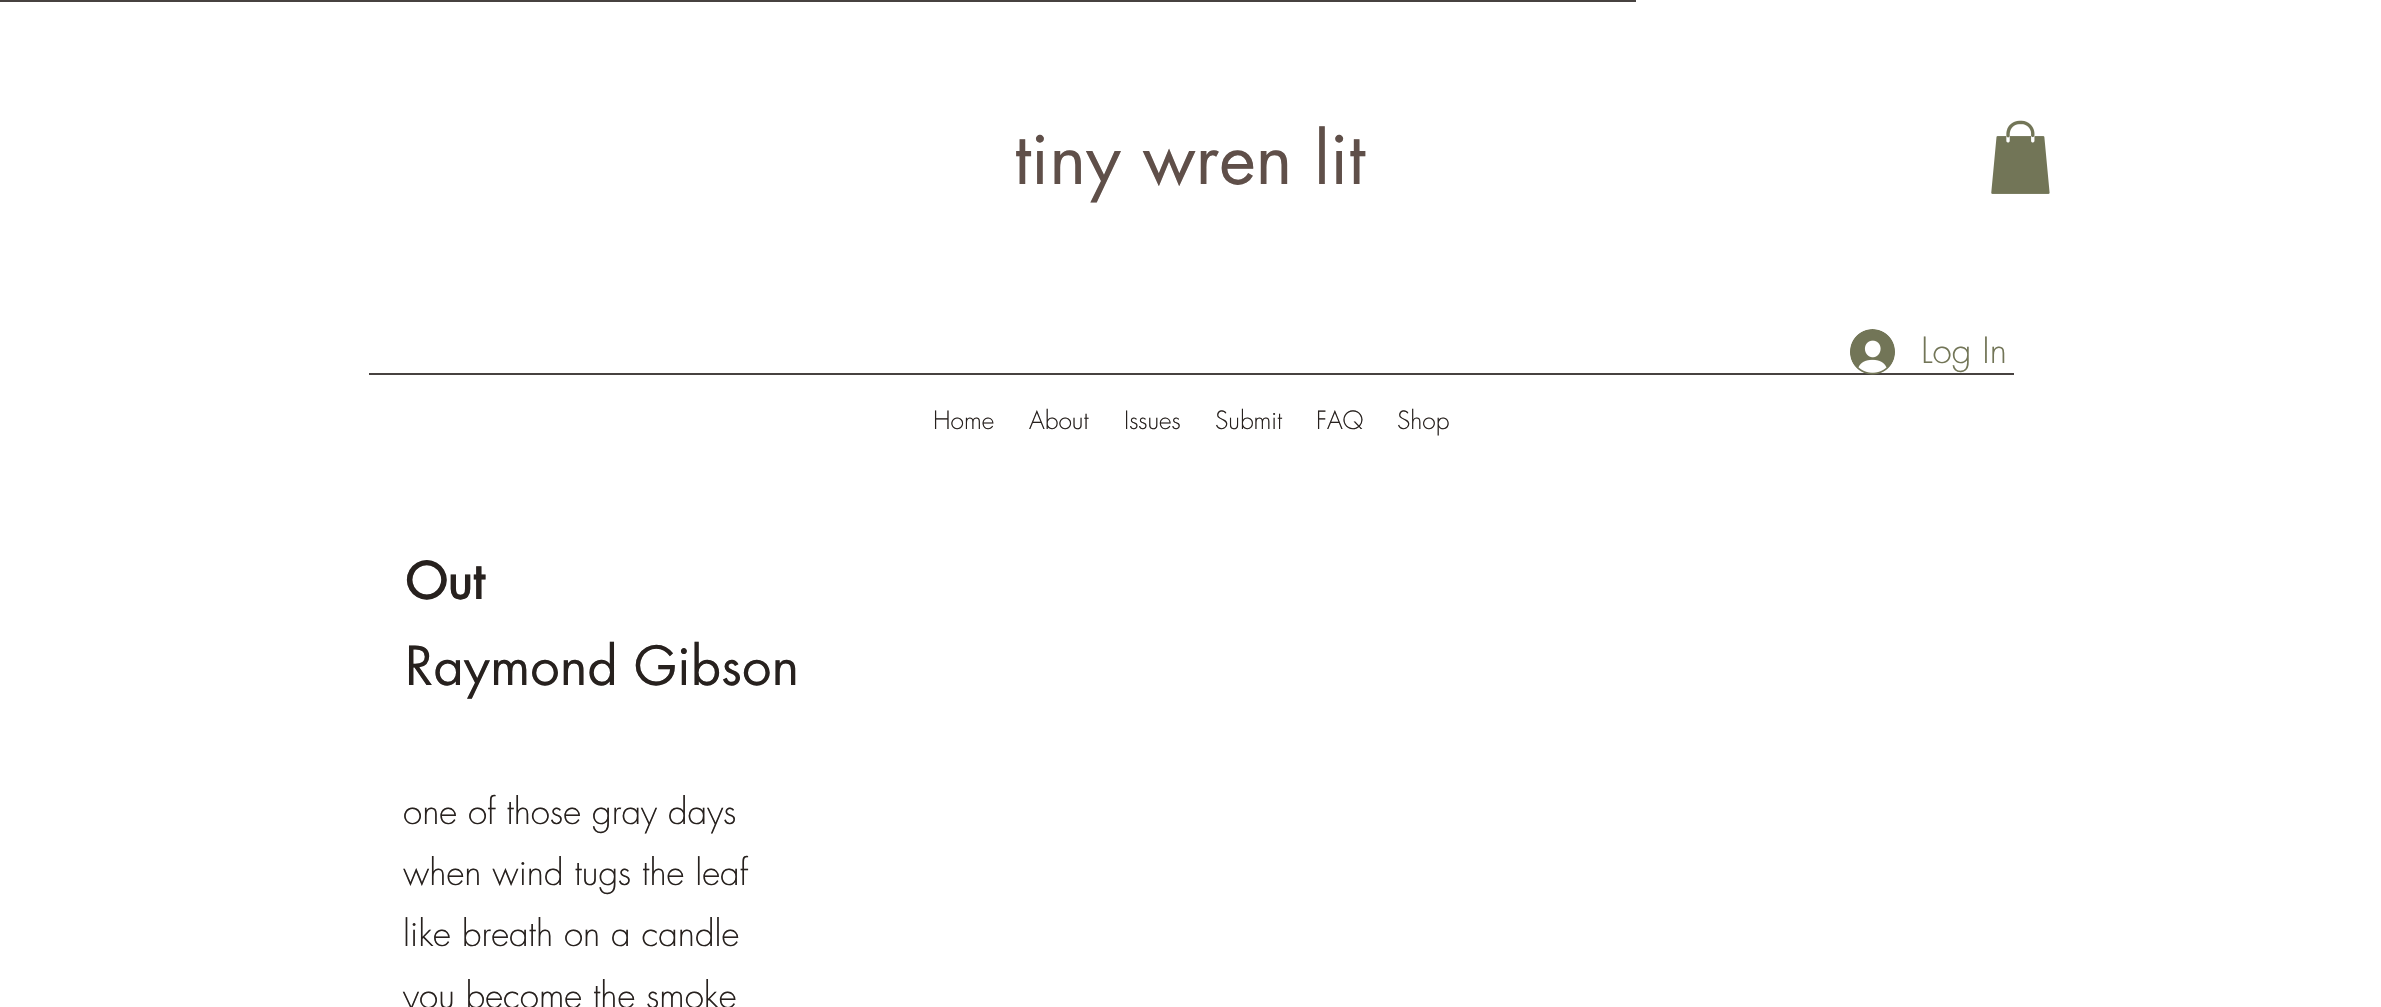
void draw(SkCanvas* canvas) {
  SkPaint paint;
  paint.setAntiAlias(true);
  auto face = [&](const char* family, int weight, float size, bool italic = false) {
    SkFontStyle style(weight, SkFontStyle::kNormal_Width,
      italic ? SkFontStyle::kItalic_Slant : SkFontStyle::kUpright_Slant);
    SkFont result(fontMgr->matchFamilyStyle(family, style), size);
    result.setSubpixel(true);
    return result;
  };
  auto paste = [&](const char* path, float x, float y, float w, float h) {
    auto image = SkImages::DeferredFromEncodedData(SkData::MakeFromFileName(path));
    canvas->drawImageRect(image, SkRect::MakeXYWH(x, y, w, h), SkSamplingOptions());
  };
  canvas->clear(0xffffffff);
  paint.setColor(0xff474240);
  canvas->drawRect(SkRect::MakeXYWH(0, 0, 1636, 2), paint);
  paste("img/1.png", 1991, 120, 59, 74);
  canvas->drawRect(SkRect::MakeXYWH(369, 373, 1645, 2), paint);
  paste("img/2.png", 1850, 329, 45, 46);
  auto f0 = face("futura", 400, 70);
  paint.setColor(0xff5f4f49);
  canvas->drawString("tiny wren lit", 1014, 184, f0, paint);
  auto f1 = face("futura", 300, 35);
  paint.setColor(0xff727557);
  canvas->drawString("Log In", 1921, 363, f1, paint);
  auto f2 = face("futura", 300, 24.5f);
  paint.setColor(0xff27211e);
  {
    const struct { const char* s; float x, y; } items[] = {
      {"Home", 933, 429},
      {"About", 1029, 429},
      {"Issues", 1124, 429},
      {"Submit", 1215, 429},
      {"FAQ", 1316, 429},
      {"Shop", 1397, 429},
    };
    for (auto [s, x, y] : items) {
      canvas->drawString(s, x, y, f2, paint);
    }
  }
  auto f3 = face("futura", 700, 49);
  canvas->drawString("Out", 405, 599, f3, paint);
  auto f4 = face("futura", 400, 52.5f);
  canvas->drawString("Raymond Gibson", 405, 685, f4, paint);
  {
    const struct { const char* s; float x, y; } items[] = {
      {"one of those gray days", 403, 824},
      {"when wind tugs the leaf", 403, 885},
      {"like breath on a candle", 403, 946},
      {"you become the smoke", 403, 1008},
    };
    for (auto [s, x, y] : items) {
      canvas->drawString(s, x, y, f1, paint);
    }
  }
}
